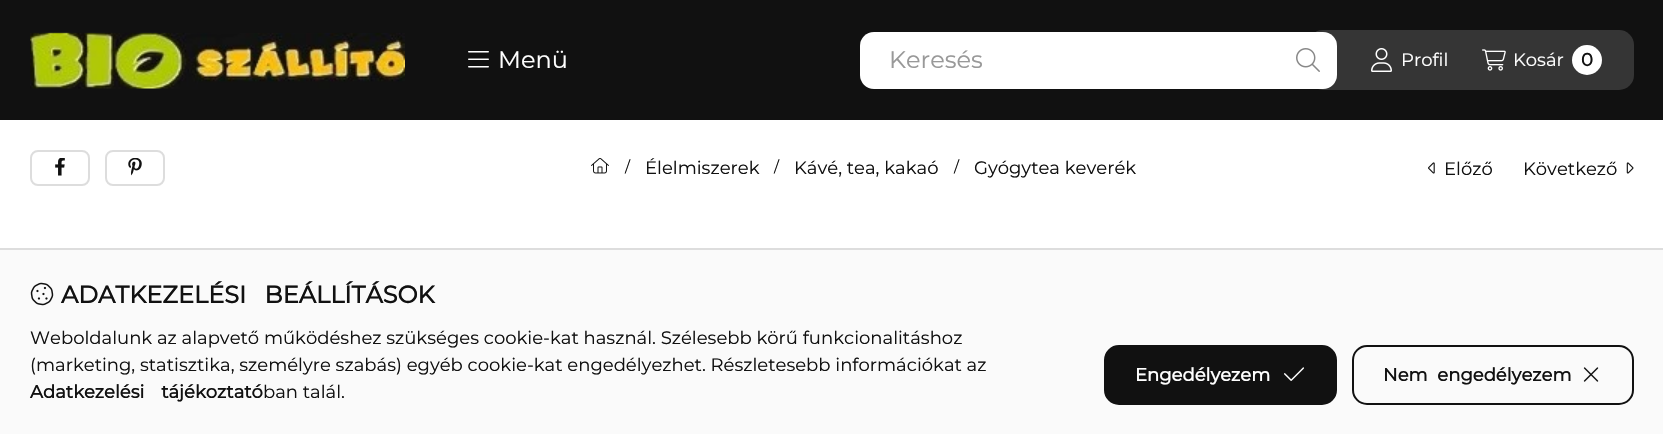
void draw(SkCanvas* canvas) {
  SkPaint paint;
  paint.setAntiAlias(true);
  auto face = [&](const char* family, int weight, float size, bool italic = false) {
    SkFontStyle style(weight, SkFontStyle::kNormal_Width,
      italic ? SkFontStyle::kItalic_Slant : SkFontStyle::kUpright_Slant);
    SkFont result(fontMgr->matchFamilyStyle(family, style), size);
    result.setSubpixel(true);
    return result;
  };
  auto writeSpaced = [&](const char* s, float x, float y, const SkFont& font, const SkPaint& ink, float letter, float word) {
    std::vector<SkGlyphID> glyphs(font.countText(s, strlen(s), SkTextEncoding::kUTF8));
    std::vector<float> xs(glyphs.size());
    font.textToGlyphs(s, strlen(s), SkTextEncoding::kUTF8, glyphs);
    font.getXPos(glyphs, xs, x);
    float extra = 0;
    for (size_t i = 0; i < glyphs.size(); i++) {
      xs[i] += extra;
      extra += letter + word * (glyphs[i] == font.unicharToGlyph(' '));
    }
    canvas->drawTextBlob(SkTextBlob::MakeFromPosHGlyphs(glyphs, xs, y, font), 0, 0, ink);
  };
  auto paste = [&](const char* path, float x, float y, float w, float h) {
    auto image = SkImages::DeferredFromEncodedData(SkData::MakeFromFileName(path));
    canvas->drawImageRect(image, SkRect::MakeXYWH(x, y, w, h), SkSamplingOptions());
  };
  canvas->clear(0xffffffff);
  paint.setColor(0xff111111);
  canvas->drawRect(SkRect::MakeXYWH(0, 0, 1663, 120), paint);
  paste("img/1.png", 30, 32, 375, 57);
  paste("img/2.png", 468, 51, 21, 17);
  paint.setColor(0xff353535);
  canvas->drawRoundRect(SkRect::MakeXYWH(1308, 30, 326, 60), 15, 15, paint);
  paint.setColor(0xffffffff);
  canvas->drawRoundRect(SkRect::MakeXYWH(860, 32, 477, 57), 14, 14, paint);
  paste("img/3.png", 1296, 48, 24, 24);
  paste("img/4.png", 1371, 48, 21, 24);
  paste("img/5.png", 1482, 49, 24, 22);
  canvas->drawCircle(1587, 60, 15, paint);
  paint.setStroke(true);
  paint.setStrokeWidth(2);
  paint.setColor(0xffdddddd);
  canvas->drawRoundRect(SkRect::MakeXYWH(31, 151, 58, 34), 7, 7, paint);
  paste("img/6.png", 55, 158, 10, 18);
  canvas->drawRoundRect(SkRect::MakeXYWH(106, 151, 58, 34), 7, 7, paint);
  paste("img/7.png", 128, 158, 14, 18);
  paste("img/8.png", 591, 158, 18, 16);
  paste("img/9.png", 1428, 162, 7, 12);
  paste("img/10.png", 1626, 162, 8, 12);
  paint.setStroke(false);
  paint.setColor(0xfffafafa);
  canvas->drawRect(SkRect::MakeXYWH(0, 250, 1663, 184), paint);
  paint.setColor(0xffdddddd);
  canvas->drawRect(SkRect::MakeXYWH(0, 248, 1663, 2), paint);
  paste("img/11.png", 30, 282, 24, 24);
  paint.setColor(0xff111111);
  canvas->drawRoundRect(SkRect::MakeXYWH(1105, 346, 231, 58), 14, 14, paint);
  paint.setStroke(true);
  canvas->drawRoundRect(SkRect::MakeXYWH(1105, 346, 231, 58), 14, 14, paint);
  paste("img/12.png", 1284, 367, 20, 14);
  canvas->drawRoundRect(SkRect::MakeXYWH(1353, 346, 280, 58), 14, 14, paint);
  paste("img/13.png", 1583, 367, 16, 15);
  auto f0 = face("Montserrat", 400, 24);
  paint.setStroke(false);
  paint.setColor(0xffffffff);
  canvas->drawString("Menü", 498, 68, f0, paint);
  paint.setColor(0xff999999);
  canvas->drawString("Keresés", 889, 68, f0, paint);
  auto f1 = face("Montserrat", 400, 18);
  paint.setColor(0xffffffff);
  canvas->drawString("Profil", 1401, 66, f1, paint);
  canvas->drawString("Kosár", 1513, 66, f1, paint);
  auto f2 = face("Montserrat", 700, 18);
  paint.setColor(0xff111111);
  canvas->drawString("0", 1581, 66, f2, paint);
  auto f3 = face("Montserrat", 400, 15);
  canvas->drawString("/", 625, 172, f3, paint);
  canvas->drawString("Élelmiszerek", 645, 174, f1, paint);
  canvas->drawString("/", 774, 172, f3, paint);
  canvas->drawString("Kávé, tea, kakaó", 794, 174, f1, paint);
  canvas->drawString("/", 954, 172, f3, paint);
  {
    const struct { const char* s; float x, y; } items[] = {
      {"Gyógytea keverék", 974, 174},
      {"Előző", 1444, 175},
      {"Következő", 1523, 175},
    };
    for (auto [s, x, y] : items) {
      canvas->drawString(s, x, y, f1, paint);
    }
  }
  auto f4 = face("Montserrat", 700, 24);
  writeSpaced("ADATKEZELÉSI BEÁLLÍTÁSOK", 61, 303, f4, paint, 0, 12);
  canvas->drawString("Weboldalunk az alapvető működéshez szükséges cookie-kat használ. Szélesebb körű funkcionalitáshoz", 30, 344, f1, paint);
  canvas->drawString("(marketing, statisztika, személyre szabás) egyéb cookie-kat engedélyezhet. Részletesebb információkat az", 30, 371, f1, paint);
  writeSpaced("Adatkezelési tájékoztató", 30, 398, f2, paint, 0, 12);
  canvas->drawString("ban talál.", 263, 398, f1, paint);
  paint.setColor(0xffffffff);
  canvas->drawString("Engedélyezem", 1135, 381, f2, paint);
  paint.setColor(0xff111111);
  writeSpaced("Nem engedélyezem", 1383, 381, f2, paint, 0, 5);
}
